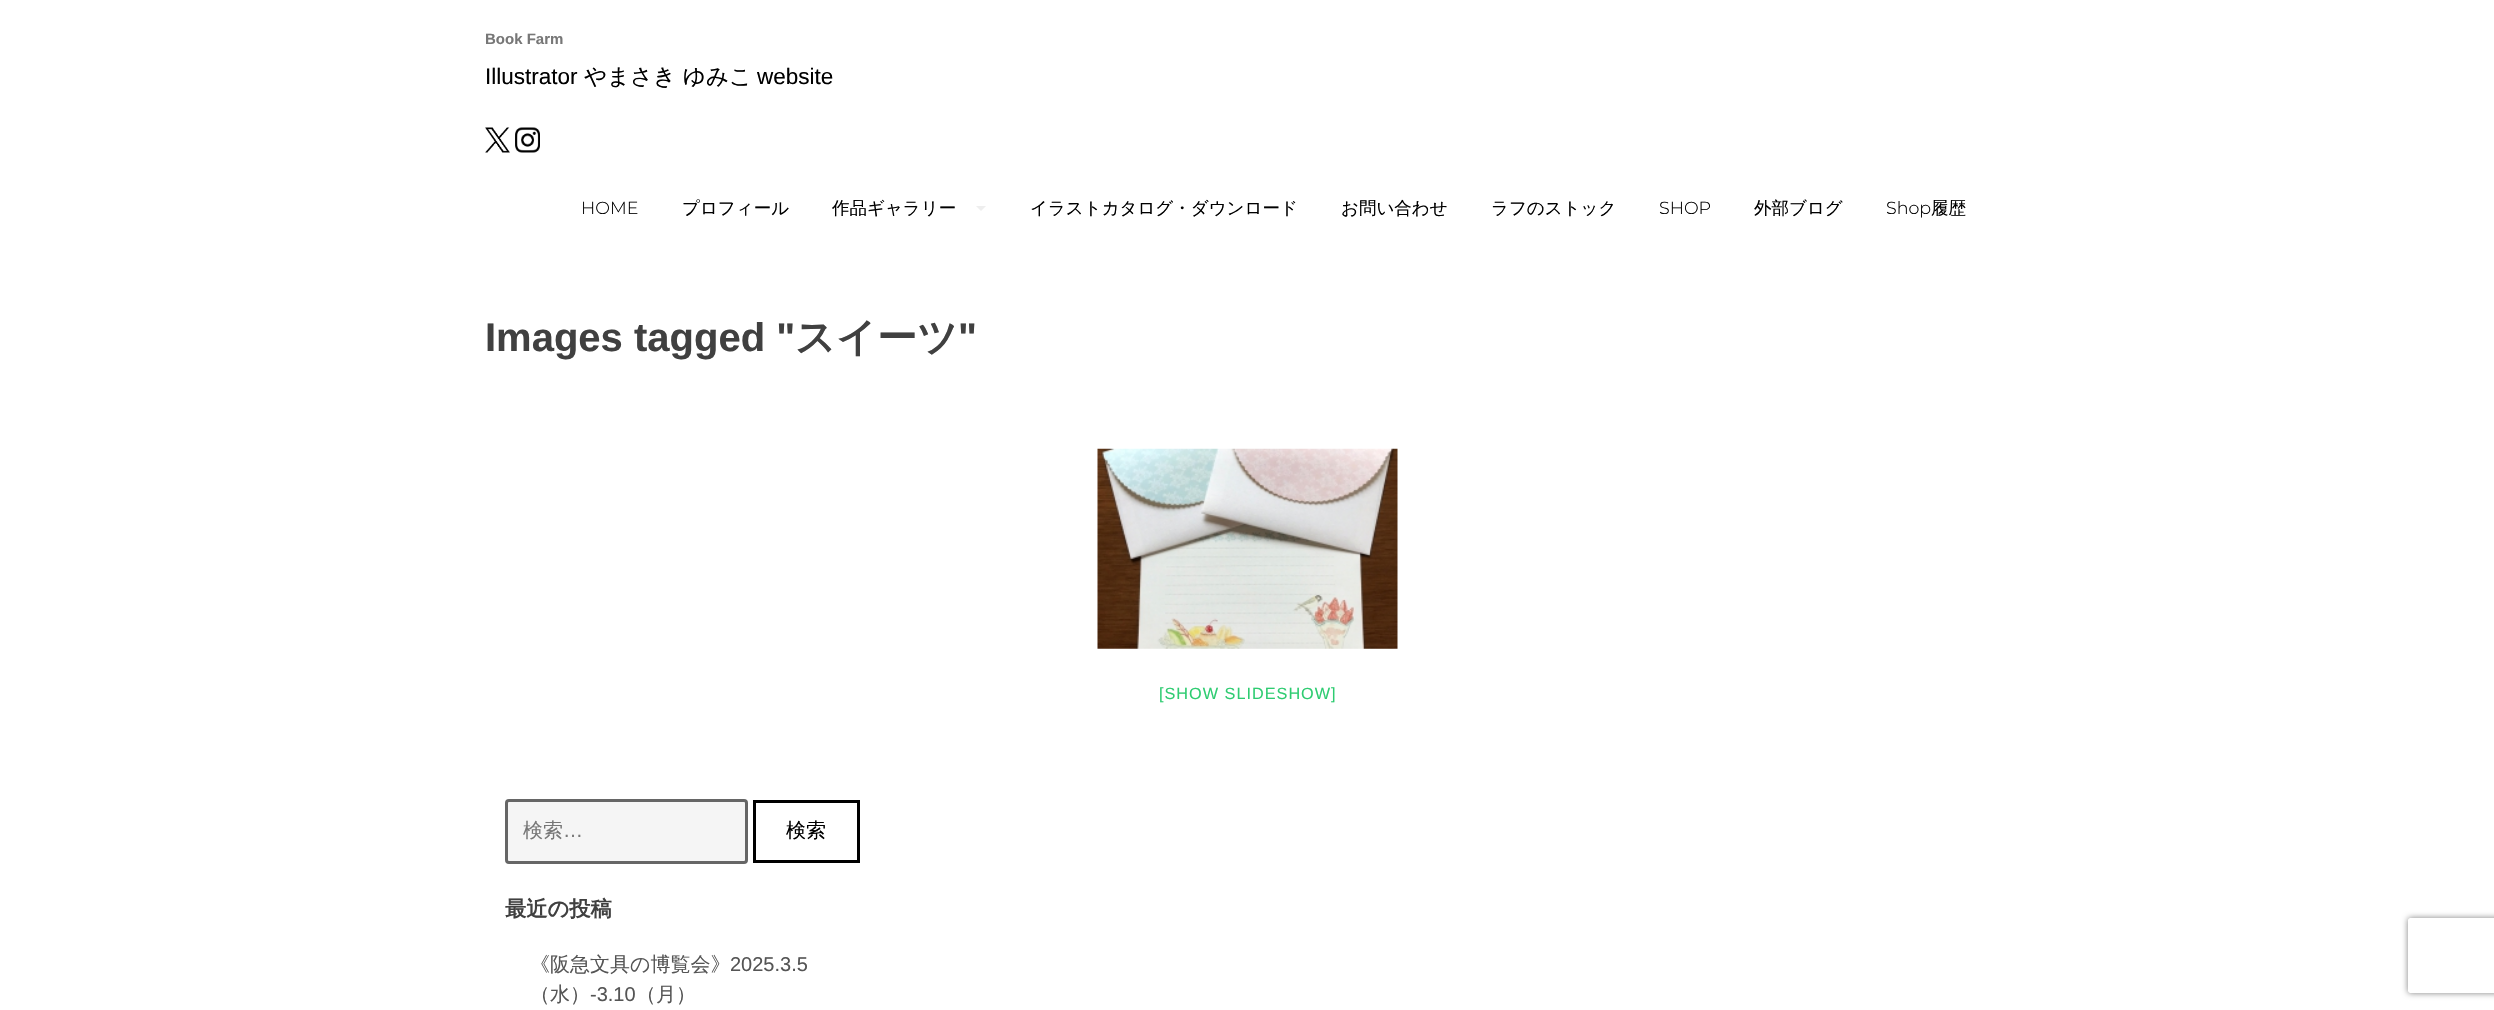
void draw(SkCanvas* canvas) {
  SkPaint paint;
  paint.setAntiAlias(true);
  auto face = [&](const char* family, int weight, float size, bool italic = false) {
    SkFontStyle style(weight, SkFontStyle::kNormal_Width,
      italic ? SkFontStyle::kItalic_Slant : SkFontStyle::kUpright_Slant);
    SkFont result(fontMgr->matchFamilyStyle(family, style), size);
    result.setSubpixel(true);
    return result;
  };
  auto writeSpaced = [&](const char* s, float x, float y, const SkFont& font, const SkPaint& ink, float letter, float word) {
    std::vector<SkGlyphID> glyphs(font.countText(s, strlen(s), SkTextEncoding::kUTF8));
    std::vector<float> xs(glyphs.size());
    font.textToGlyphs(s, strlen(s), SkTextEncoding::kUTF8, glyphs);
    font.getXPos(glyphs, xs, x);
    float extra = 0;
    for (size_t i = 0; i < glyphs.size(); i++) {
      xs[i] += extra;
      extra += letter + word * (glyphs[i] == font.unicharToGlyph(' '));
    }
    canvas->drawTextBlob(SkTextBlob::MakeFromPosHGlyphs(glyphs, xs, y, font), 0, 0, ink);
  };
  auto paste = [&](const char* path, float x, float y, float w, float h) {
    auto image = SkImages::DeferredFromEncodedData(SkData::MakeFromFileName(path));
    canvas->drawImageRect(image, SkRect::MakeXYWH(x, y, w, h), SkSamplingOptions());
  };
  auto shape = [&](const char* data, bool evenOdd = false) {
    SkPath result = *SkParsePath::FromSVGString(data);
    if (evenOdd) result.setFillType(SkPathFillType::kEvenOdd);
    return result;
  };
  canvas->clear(0xffffffff);
  paste("img/1.png", 485, 127, 25, 26);
  paste("img/2.png", 515, 127, 25, 26);
  paint.setColor(0xffeeeeee);
  canvas->drawPath(shape("M976 206H986L981 211Z"), paint);
  paste("img/3.png", 1097, 448, 301, 201);
  paint.setColor(0xfff5f5f5);
  canvas->drawRoundRect(SkRect::MakeXYWH(506.5f, 800.5f, 240, 62), 2.5f, 2.5f, paint);
  paint.setStroke(true);
  paint.setStrokeWidth(3);
  paint.setColor(0xff666666);
  canvas->drawRoundRect(SkRect::MakeXYWH(506.5f, 800.5f, 240, 62), 2.5f, 2.5f, paint);
  paint.setColor(0xff000000);
  canvas->drawRect(SkRect::MakeXYWH(754.5f, 801.5f, 104, 60), paint);
  canvas->save();
  canvas->clipPath(shape("M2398 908H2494V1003H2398ZM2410.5 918H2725.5C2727 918 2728 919 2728 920.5V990.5C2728 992 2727 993 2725.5 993H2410.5C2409 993 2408 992 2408 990.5V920.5C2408 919 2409 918 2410.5 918Z", true), true);
  paint.setStroke(false);
  paint.setColor(0xff808080);
  paint.setMaskFilter(SkMaskFilter::MakeBlur(kNormal_SkBlurStyle, 3));
  canvas->drawRoundRect(SkRect::MakeXYWH(2408, 918, 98, 75), 2.5f, 2.5f, paint);
  paint.setMaskFilter(nullptr);
  canvas->restore();
  auto f0 = face("Liberation Sans", 700, 15);
  paint.setColor(0xff777777);
  canvas->drawString("Book Farm", 485, 44, f0, paint);
  auto f1 = face("Liberation Sans", 400, 22.5f);
  paint.setColor(0xff000000);
  canvas->drawString("Illustrator", 485, 84, f1, paint);
  auto f2 = face("WenQuanYi Zen Hei", 500, 22.5f);
  canvas->drawString("やまさき ゆみこ", 584, 84, f2, paint);
  canvas->drawString("website", 757, 84, f1, paint);
  auto f3 = face("Montserrat", 300, 17.5f);
  canvas->drawString("HOME", 581, 214, f3, paint);
  auto f4 = face("WenQuanYi Zen Hei", 500, 17.5f);
  {
    const struct { const char* s; float x, y; } items[] = {
      {"プロフィール", 682, 214},
      {"作品ギャラリー", 832, 214},
      {"イラストカタログ・ダウンロード", 1030, 214},
      {"お問い合わせ", 1341, 214},
      {"ラフのストック", 1491, 214},
    };
    for (auto [s, x, y] : items) {
      canvas->drawString(s, x, y, f4, paint);
    }
  }
  canvas->drawString("SHOP", 1659, 214, f3, paint);
  canvas->drawString("外部ブログ", 1754, 214, f4, paint);
  canvas->drawString("Shop", 1886, 214, f3, paint);
  canvas->drawString("履歴", 1931, 214, f4, paint);
  auto f5 = face("Liberation Sans", 700, 40);
  paint.setColor(0xff404040);
  canvas->drawString("Images tagged \"", 485, 351, f5, paint);
  auto f6 = face("WenQuanYi Zen Hei", 700, 40);
  canvas->drawString("スイーツ", 795, 351, f6, paint);
  canvas->drawString("\"", 958, 351, f5, paint);
  auto f7 = face("Liberation Sans", 400, 16.25f);
  paint.setColor(0xff2ecc71);
  writeSpaced("[SHOW SLIDESHOW]", 1159, 699, f7, paint, 1, 0);
  auto f8 = face("WenQuanYi Zen Hei", 500, 20);
  paint.setColor(0xff777777);
  canvas->drawString("検索", 523, 837, f8, paint);
  auto f9 = face("Liberation Sans", 400, 20);
  canvas->drawString("…", 563, 837, f9, paint);
  paint.setColor(0xff000000);
  canvas->drawString("検索", 786, 837, f8, paint);
  auto f10 = face("WenQuanYi Zen Hei", 700, 21.25f);
  paint.setColor(0xff404040);
  canvas->drawString("最近の投稿", 505, 916, f10, paint);
  paint.setColor(0xff555555);
  canvas->drawString("《阪急文具の博覧会》", 530, 971, f8, paint);
  canvas->drawString("2025.3.5", 730, 971, f9, paint);
  canvas->drawString("（水）", 530, 1001, f8, paint);
  canvas->drawString("-3.10", 590, 1001, f9, paint);
  canvas->drawString("（月）", 636, 1001, f8, paint);
}
